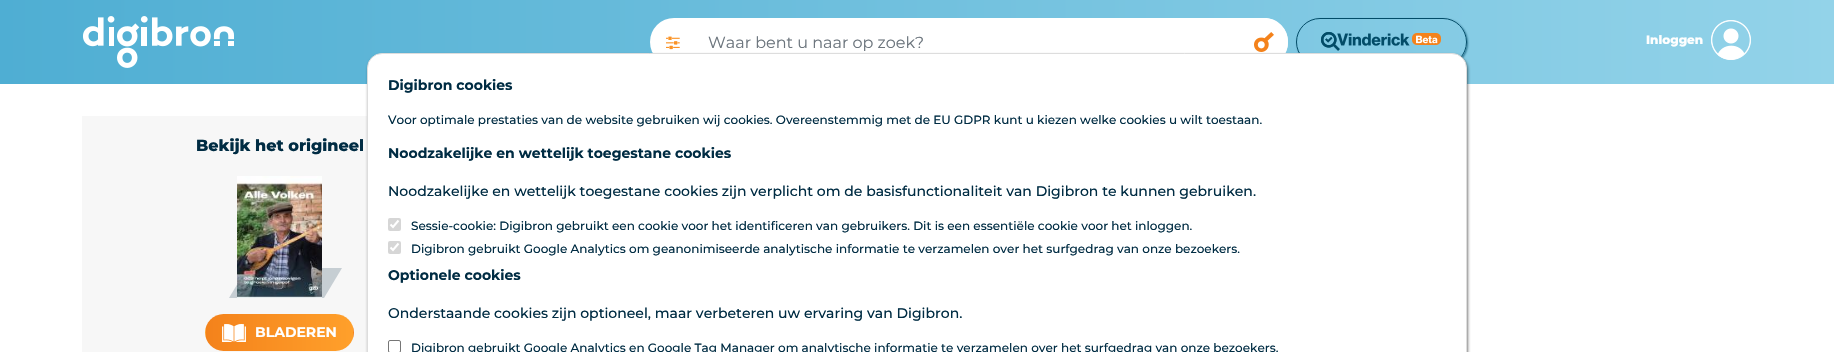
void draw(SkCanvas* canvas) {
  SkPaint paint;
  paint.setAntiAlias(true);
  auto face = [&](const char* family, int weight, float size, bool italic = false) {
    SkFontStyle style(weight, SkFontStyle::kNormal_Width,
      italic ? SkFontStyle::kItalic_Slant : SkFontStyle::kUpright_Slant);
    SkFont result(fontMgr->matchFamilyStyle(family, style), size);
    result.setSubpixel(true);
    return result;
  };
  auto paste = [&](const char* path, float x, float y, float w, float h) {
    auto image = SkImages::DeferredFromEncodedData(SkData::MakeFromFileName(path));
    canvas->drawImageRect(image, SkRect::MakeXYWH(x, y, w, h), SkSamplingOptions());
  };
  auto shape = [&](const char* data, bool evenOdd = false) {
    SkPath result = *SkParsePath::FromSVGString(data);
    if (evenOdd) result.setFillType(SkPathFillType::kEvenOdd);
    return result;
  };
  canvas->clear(0xffffffff);
  {
    const SkColor colors[] = {0xff93d3e9, 0xff4faed3};
    const float stops[] = {0, 1};
    const SkPoint ends[] = {{1834, 42}, {0, 42}};
    paint.setShader(SkGradientShader::MakeLinear(ends, colors, stops, 2, SkTileMode::kClamp));
    paint.setAlpha(255);
  }
  canvas->drawRect(SkRect::MakeXYWH(0, 0, 1834, 84), paint);
  paste("img/1.png", 83, 16, 151, 52);
  paint.setShader(nullptr);
  paint.setColor(0xffffffff);
  canvas->drawRoundRect(SkRect::MakeXYWH(650, 18, 638, 48), 24, 24, paint);
  paste("img/2.png", 666, 36, 14, 14);
  canvas->drawPath(shape("M1240 18H1264C1277.5 18 1288 28.5 1288 42C1288 55.5 1277.5 66 1264 66H1240Z"), paint);
  paste("img/3.png", 1254, 32, 20, 20);
  canvas->save();
  canvas->clipPath(shape("M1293 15H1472V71H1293ZM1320 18H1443C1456.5 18 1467 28.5 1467 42C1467 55.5 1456.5 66 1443 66H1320C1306.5 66 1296 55.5 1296 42C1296 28.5 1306.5 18 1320 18Z", true), true);
  paint.setColor(0xab024c68);
  paint.setMaskFilter(SkMaskFilter::MakeBlur(kNormal_SkBlurStyle, 1));
  canvas->drawRoundRect(SkRect::MakeXYWH(1297, 19, 171, 48), 24, 24, paint);
  paint.setMaskFilter(nullptr);
  canvas->restore();
  paint.setStroke(true);
  paint.setStrokeWidth(1);
  paint.setColor(0xff024c68);
  canvas->drawRoundRect(SkRect::MakeXYWH(1296.5f, 18.5f, 170, 47), 23.5f, 23.5f, paint);
  paste("img/4.png", 1321, 32, 120, 19);
  paste("img/5.png", 1711, 20, 40, 40);
  paint.setStroke(false);
  paint.setColor(0xfff7f7f7);
  canvas->drawRect(SkRect::MakeXYWH(82, 116, 285, 236), paint);
  paint.setColor(0xffc6ced3);
  canvas->drawPath(shape("M247 268H342L324 298H229Z"), paint);
  paste("img/6.png", 237, 176, 85, 122);
  canvas->save();
  canvas->clipPath(shape("M223.5 314H335.5C345.5 314 354 322.5 354 332.5C354 342.5 345.5 351 335.5 351H223.5C213.5 351 205 342.5 205 332.5C205 322.5 213.5 314 223.5 314Z"), true);
  {
    const SkColor colors[] = {0xffffa02b, 0xfff4821b};
    const float stops[] = {0, 1};
    const SkPoint ends[] = {{206, 333}, {59, 333}};
    paint.setShader(SkGradientShader::MakeLinear(ends, colors, stops, 2, SkTileMode::kClamp));
    paint.setAlpha(255);
  }
  canvas->drawRect(SkRect::MakeXYWH(205, 326, 1, 13), paint);
  {
    const SkColor colors[] = {0xffffa02b, 0xfff4821b};
    const float stops[] = {0, 1};
    const SkPoint ends[] = {{353, 333}, {206, 333}};
    paint.setShader(SkGradientShader::MakeLinear(ends, colors, stops, 2, SkTileMode::kClamp));
    paint.setAlpha(255);
  }
  canvas->drawRect(SkRect::MakeXYWH(206, 314, 147, 37), paint);
  {
    const SkColor colors[] = {0xffffa02b, 0xfff4821b};
    const float stops[] = {0, 1};
    const SkPoint ends[] = {{500, 333}, {353, 333}};
    paint.setShader(SkGradientShader::MakeLinear(ends, colors, stops, 2, SkTileMode::kClamp));
    paint.setAlpha(255);
  }
  canvas->drawRect(SkRect::MakeXYWH(353, 326, 1, 13), paint);
  canvas->restore();
  paste("img/7.png", 222, 324, 24, 18);
  paint.setShader(nullptr);
  paint.setColor(0x80000000);
  paint.setMaskFilter(SkMaskFilter::MakeBlur(kNormal_SkBlurStyle, 1.5f));
  canvas->drawRoundRect(SkRect::MakeXYWH(368, 55, 1100, 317), 15, 15, paint);
  paint.setMaskFilter(nullptr);
  paint.setColor(0xffffffff);
  canvas->drawRoundRect(SkRect::MakeXYWH(367.5f, 53.5f, 1099, 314), 14.5f, 14.5f, paint);
  paint.setStroke(true);
  paint.setColor(0xffdddddd);
  canvas->drawRoundRect(SkRect::MakeXYWH(367.5f, 53.5f, 1099, 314), 14.5f, 14.5f, paint);
  paint.setStroke(false);
  paint.setColor(0xffd6d6d6);
  canvas->drawRoundRect(SkRect::MakeXYWH(388, 218, 13, 13), 2, 2, paint);
  paint.setStroke(true);
  paint.setStrokeWidth(2.1f);
  paint.setColor(0xffffffff);
  canvas->drawPath(shape("M390.5 224.5L393 227L398.5 220.5"), paint);
  paint.setStroke(false);
  paint.setColor(0xffd6d6d6);
  canvas->drawRoundRect(SkRect::MakeXYWH(388, 241, 13, 13), 2, 2, paint);
  paint.setStroke(true);
  paint.setColor(0xffffffff);
  canvas->drawPath(shape("M390.5 247.5L393 250L398.5 243.5"), paint);
  paint.setStrokeWidth(1);
  paint.setColor(0xff767676);
  canvas->drawRoundRect(SkRect::MakeXYWH(388.5f, 340.5f, 12, 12), 1.5f, 1.5f, paint);
  auto f0 = face("Montserrat", 400, 16);
  paint.setStroke(false);
  paint.setColor(0xff6c757d);
  canvas->drawString("Waar bent u naar op zoek?", 708, 48, f0, paint);
  auto f1 = face("Montserrat", 800, 12);
  paint.setColor(0xffffffff);
  canvas->drawString("Inloggen", 1646, 44, f1, paint);
  auto f2 = face("Montserrat", 800, 16);
  paint.setColor(0xff002c43);
  canvas->drawString("Bekijk het origineel", 196, 151, f2, paint);
  auto f3 = face("Montserrat", 700, 14);
  paint.setColor(0xffffffff);
  canvas->drawString("BLADEREN", 255, 337, f3, paint);
  paint.setColor(0xff002c43);
  canvas->drawString("Digibron cookies", 388, 90, f3, paint);
  auto f4 = face("Montserrat", 500, 12);
  canvas->drawString("Voor optimale prestaties van de website gebruiken wij cookies. Overeenstemmig met de EU GDPR kunt u kiezen welke cookies u wilt toestaan.", 388, 124, f4, paint);
  canvas->drawString("Noodzakelijke en wettelijk toegestane cookies", 388, 158, f3, paint);
  auto f5 = face("Montserrat", 500, 14);
  canvas->drawString("Noodzakelijke en wettelijk toegestane cookies zijn verplicht om de basisfunctionaliteit van Digibron te kunnen gebruiken.", 388, 196, f5, paint);
  canvas->drawString("Sessie-cookie: Digibron gebruikt een cookie voor het identificeren van gebruikers. Dit is een essentiële cookie voor het inloggen.", 411, 230, f4, paint);
  canvas->drawString("Digibron gebruikt Google Analytics om geanonimiseerde analytische informatie te verzamelen over het surfgedrag van onze bezoekers.", 411, 253, f4, paint);
  canvas->drawString("Optionele cookies", 388, 280, f3, paint);
  canvas->drawString("Onderstaande cookies zijn optioneel, maar verbeteren uw ervaring van Digibron.", 388, 318, f5, paint);
  canvas->drawString("Digibron gebruikt Google Analytics en Google Tag Manager om analytische informatie te verzamelen over het surfgedrag van onze bezoekers.", 411, 352, f4, paint);
}
